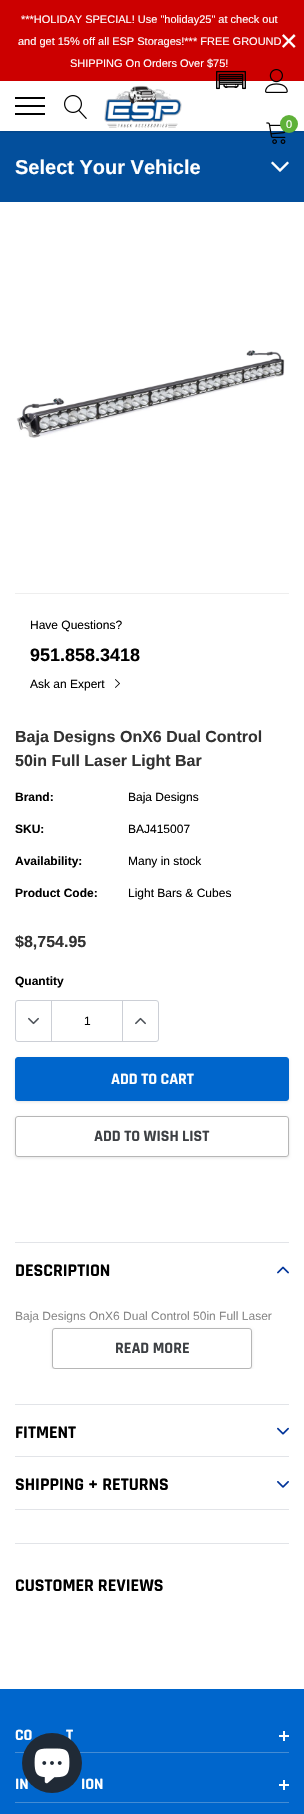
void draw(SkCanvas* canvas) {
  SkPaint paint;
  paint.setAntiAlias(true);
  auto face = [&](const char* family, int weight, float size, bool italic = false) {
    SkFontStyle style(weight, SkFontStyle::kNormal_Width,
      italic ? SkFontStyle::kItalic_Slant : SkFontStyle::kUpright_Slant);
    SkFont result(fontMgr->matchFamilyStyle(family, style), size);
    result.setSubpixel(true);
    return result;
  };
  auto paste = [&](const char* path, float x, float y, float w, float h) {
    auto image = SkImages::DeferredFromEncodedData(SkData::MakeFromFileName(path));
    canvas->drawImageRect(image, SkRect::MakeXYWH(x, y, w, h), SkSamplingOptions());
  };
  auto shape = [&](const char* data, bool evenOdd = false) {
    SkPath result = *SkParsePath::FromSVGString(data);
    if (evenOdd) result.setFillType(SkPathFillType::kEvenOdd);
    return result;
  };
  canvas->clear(0xffffffff);
  paint.setColor(0xffcc0000);
  canvas->drawRect(SkRect::MakeXYWH(0, 0, 304, 81), paint);
  paint.setColor(0xff034f9c);
  canvas->drawRect(SkRect::MakeXYWH(0, 131, 304, 71), paint);
  canvas->save();
  canvas->clipRect(SkRect::MakeXYWH(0, 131, 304, 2));
  paint.setColor(0x26000000);
  paint.setMaskFilter(SkMaskFilter::MakeBlur(kNormal_SkBlurStyle, 1));
  canvas->drawRect(SkRect::MakeXYWH(0, 82, 304, 50), paint);
  paint.setMaskFilter(nullptr);
  canvas->restore();
  {
    const struct { float x, y, w, h; SkColor color; } items[] = {
      {15, 105, 30, 2, 0xff000000},
      {15, 97, 30, 2, 0xff000000},
      {15, 113, 30, 2, 0xff000000},
    };
    for (auto [x, y, w, h, color] : items) {
      paint.setColor(color);
      canvas->drawRect(SkRect::MakeXYWH(x, y, w, h), paint);
    }
  }
  paste("img/1.png", 64, 95, 23, 24);
  paste("img/2.png", 104, 85, 78, 43);
  paste("img/3.png", 216, 70, 30, 20);
  paste("img/4.png", 265, 69, 23, 24);
  paste("img/5.png", 266, 122, 20, 22);
  paint.setColor(0xff5fb139);
  canvas->drawCircle(289, 124, 9, paint);
  paste("img/6.png", 271, 161, 18, 11);
  paste("img/7.png", 16, 350, 269, 88);
  paint.setColor(0xffeeeeee);
  canvas->drawRect(SkRect::MakeXYWH(15, 593, 274, 1), paint);
  paste("img/8.png", 115, 679, 5, 9);
  paint.setStroke(true);
  paint.setStrokeWidth(1);
  paint.setColor(0xffcccfd6);
  canvas->drawRoundRect(SkRect::MakeXYWH(15.5f, 1000.5f, 143, 41), 2.5f, 2.5f, paint);
  paint.setStroke(false);
  canvas->drawRect(SkRect::MakeXYWH(51, 1001, 1, 40), paint);
  paste("img/9.png", 28, 1017, 11, 8);
  canvas->drawRect(SkRect::MakeXYWH(122, 1001, 1, 40), paint);
  paste("img/10.png", 135, 1017, 11, 8);
  paint.setColor(0x1a000000);
  paint.setMaskFilter(SkMaskFilter::MakeBlur(kNormal_SkBlurStyle, 1.5f));
  canvas->drawRoundRect(SkRect::MakeXYWH(15, 1058, 274, 44), 3, 3, paint);
  paint.setMaskFilter(nullptr);
  paint.setColor(0xff0066cc);
  canvas->drawRoundRect(SkRect::MakeXYWH(15.5f, 1057.5f, 273, 43), 2.5f, 2.5f, paint);
  paint.setStroke(true);
  canvas->drawRoundRect(SkRect::MakeXYWH(15.5f, 1057.5f, 273, 43), 2.5f, 2.5f, paint);
  canvas->save();
  canvas->clipPath(shape("M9 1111H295V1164H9ZM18 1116H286C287.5 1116 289 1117.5 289 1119V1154C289 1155.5 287.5 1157 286 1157H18C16.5 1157 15 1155.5 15 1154V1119C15 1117.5 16.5 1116 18 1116Z", true), true);
  paint.setStroke(false);
  paint.setColor(0x1a000000);
  paint.setMaskFilter(SkMaskFilter::MakeBlur(kNormal_SkBlurStyle, 1.5f));
  canvas->drawRoundRect(SkRect::MakeXYWH(15, 1117, 274, 41), 3, 3, paint);
  paint.setMaskFilter(nullptr);
  canvas->restore();
  paint.setStroke(true);
  paint.setColor(0xffb6b6b6);
  canvas->drawRoundRect(SkRect::MakeXYWH(15.5f, 1116.5f, 273, 40), 2.5f, 2.5f, paint);
  paint.setStroke(false);
  paint.setColor(0xffe2e4e8);
  canvas->drawRect(SkRect::MakeXYWH(15, 1509, 274, 1), paint);
  canvas->drawRect(SkRect::MakeXYWH(15, 1242, 274, 1), paint);
  paste("img/11.png", 277, 1266, 12, 8);
  canvas->save();
  canvas->clipRect(SkRect::MakeXYWH(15, 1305, 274, 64));
  paint.setColor(0x1a000000);
  paint.setMaskFilter(SkMaskFilter::MakeBlur(kNormal_SkBlurStyle, 1.5f));
  canvas->drawRoundRect(SkRect::MakeXYWH(52, 1329, 200, 41), 3, 3, paint);
  paint.setMaskFilter(nullptr);
  canvas->restore();
  paint.setColor(0xffffffff);
  canvas->drawRoundRect(SkRect::MakeXYWH(52.5f, 1328.5f, 199, 40), 2.5f, 2.5f, paint);
  paint.setStroke(true);
  paint.setColor(0xffb6b6b6);
  canvas->drawRoundRect(SkRect::MakeXYWH(52.5f, 1328.5f, 199, 40), 2.5f, 2.5f, paint);
  paint.setStroke(false);
  paint.setColor(0xffe2e4e8);
  canvas->drawRect(SkRect::MakeXYWH(15, 1404, 274, 1), paint);
  paste("img/12.png", 277, 1427, 12, 8);
  canvas->drawRect(SkRect::MakeXYWH(15, 1456, 274, 1), paint);
  paste("img/13.png", 277, 1481, 12, 7);
  {
    const struct { float x, y, w, h; SkColor color; } items[] = {
      {15, 1543, 274, 1, 0xffe2e4e8},
      {0, 1689, 304, 125, 0xff0066cc},
      {15, 1752, 274, 1, 0xff448cd4},
      {283, 1731, 2, 10, 0xffffffff},
      {279, 1735, 10, 2, 0xffffffff},
      {15, 1802, 274, 1, 0xff448cd4},
      {283, 1780, 2, 10, 0xffffffff},
      {279, 1784, 10, 2, 0xffffffff},
    };
    for (auto [x, y, w, h, color] : items) {
      paint.setColor(color);
      canvas->drawRect(SkRect::MakeXYWH(x, y, w, h), paint);
    }
  }
  auto f0 = face("Arimo", 400, 11);
  {
    const struct { const char* s; float x, y; } items[] = {
      {"***HOLIDAY SPECIAL! Use \"holiday25\" at check out", 21, 23},
      {"and get 15% off all ESP Storages!*** FREE GROUND", 18, 45},
      {"SHIPPING On Orders Over $75!", 70, 67},
    };
    for (auto [s, x, y] : items) {
      canvas->drawString(s, x, y, f0, paint);
    }
  }
  auto f1 = face("Arimo", 400, 30);
  canvas->drawString("×", 280, 51, f1, paint);
  canvas->drawString("0", 286, 128, f0, paint);
  auto f2 = face("Arimo", 700, 20);
  canvas->drawString("Select Your Vehicle", 15, 174, f2, paint);
  auto f3 = face("Arimo", 400, 12);
  paint.setColor(0xff000000);
  canvas->drawString("Have Questions?", 30, 629, f3, paint);
  auto f4 = face("Arimo", 700, 18);
  canvas->drawString("951.858.3418", 30, 661, f4, paint);
  canvas->drawString("Ask an Expert", 30, 688, f3, paint);
  auto f5 = face("Arimo", 700, 16);
  paint.setColor(0xff323232);
  canvas->drawString("Baja Designs OnX6 Dual Control", 15, 742, f5, paint);
  canvas->drawString("50in Full Laser Light Bar", 15, 766, f5, paint);
  auto f6 = face("Arimo", 700, 12);
  paint.setColor(0xff000000);
  canvas->drawString("Brand:", 15, 801, f6, paint);
  canvas->drawString("Baja Designs", 128, 801, f3, paint);
  canvas->drawString("SKU:", 15, 833, f6, paint);
  canvas->drawString("BAJ415007", 128, 833, f3, paint);
  canvas->drawString("Availability:", 15, 865, f6, paint);
  canvas->drawString("Many in stock", 128, 865, f3, paint);
  canvas->drawString("Product Code:", 15, 897, f6, paint);
  canvas->drawString("Light Bars & Cubes", 128, 897, f3, paint);
  paint.setColor(0xff323232);
  canvas->drawString("$8,754.95", 15, 947, f5, paint);
  paint.setColor(0xff000000);
  canvas->drawString("Quantity", 15, 985, f6, paint);
  canvas->drawString("1", 84, 1025, f3, paint);
  auto f7 = face("Rajdhani", 700, 16);
  paint.setColor(0xffffffff);
  canvas->drawString("ADD TO CART", 111, 1084, f7, paint);
  paint.setColor(0xff3d4044);
  canvas->drawString("ADD TO WISH LIST", 94, 1141, f7, paint);
  auto f8 = face("Rajdhani", 700, 18);
  paint.setColor(0xff000000);
  canvas->drawString("DESCRIPTION", 15, 1276, f8, paint);
  canvas->drawString("Baja Designs OnX6 Dual Control 50in Full Laser", 15, 1320, f3, paint);
  {
    const SkColor colors[] = {0x00ffffff, 0x80ffffff, 0xffffffff};
    const float stops[] = {0, 0.3f, 1};
    const SkPoint ends[] = {{152, 1288}, {152, 1369}};
    paint.setShader(SkGradientShader::MakeLinear(ends, colors, stops, 3, SkTileMode::kClamp));
    paint.setAlpha(255);
  }
  canvas->drawRect(SkRect::MakeXYWH(16, 1311, 256, 12), paint);
  paint.setShader(nullptr);
  paint.setColor(0xff3d4044);
  canvas->drawString("READ MORE", 115, 1353, f7, paint);
  paint.setColor(0xff000000);
  {
    const struct { const char* s; float x, y; } items[] = {
      {"FITMENT", 15, 1438},
      {"SHIPPING + RETURNS", 15, 1490},
      {"CUSTOMER REVIEWS", 15, 1591},
    };
    for (auto [s, x, y] : items) {
      canvas->drawString(s, x, y, f8, paint);
    }
  }
  paint.setColor(0xffffffff);
  {
    const struct { const char* s; float x, y; } items[] = {
      {"CO", 15, 1740},
      {"T", 66, 1740},
      {"IN", 15, 1789},
      {"ION", 81, 1789},
    };
    for (auto [s, x, y] : items) {
      canvas->drawString(s, x, y, f7, paint);
    }
  }
  paint.setColor(0xff202a36);
  canvas->drawCircle(52, 1763, 30, paint);
  paste("img/14.png", 34, 1748, 36, 36);
}
